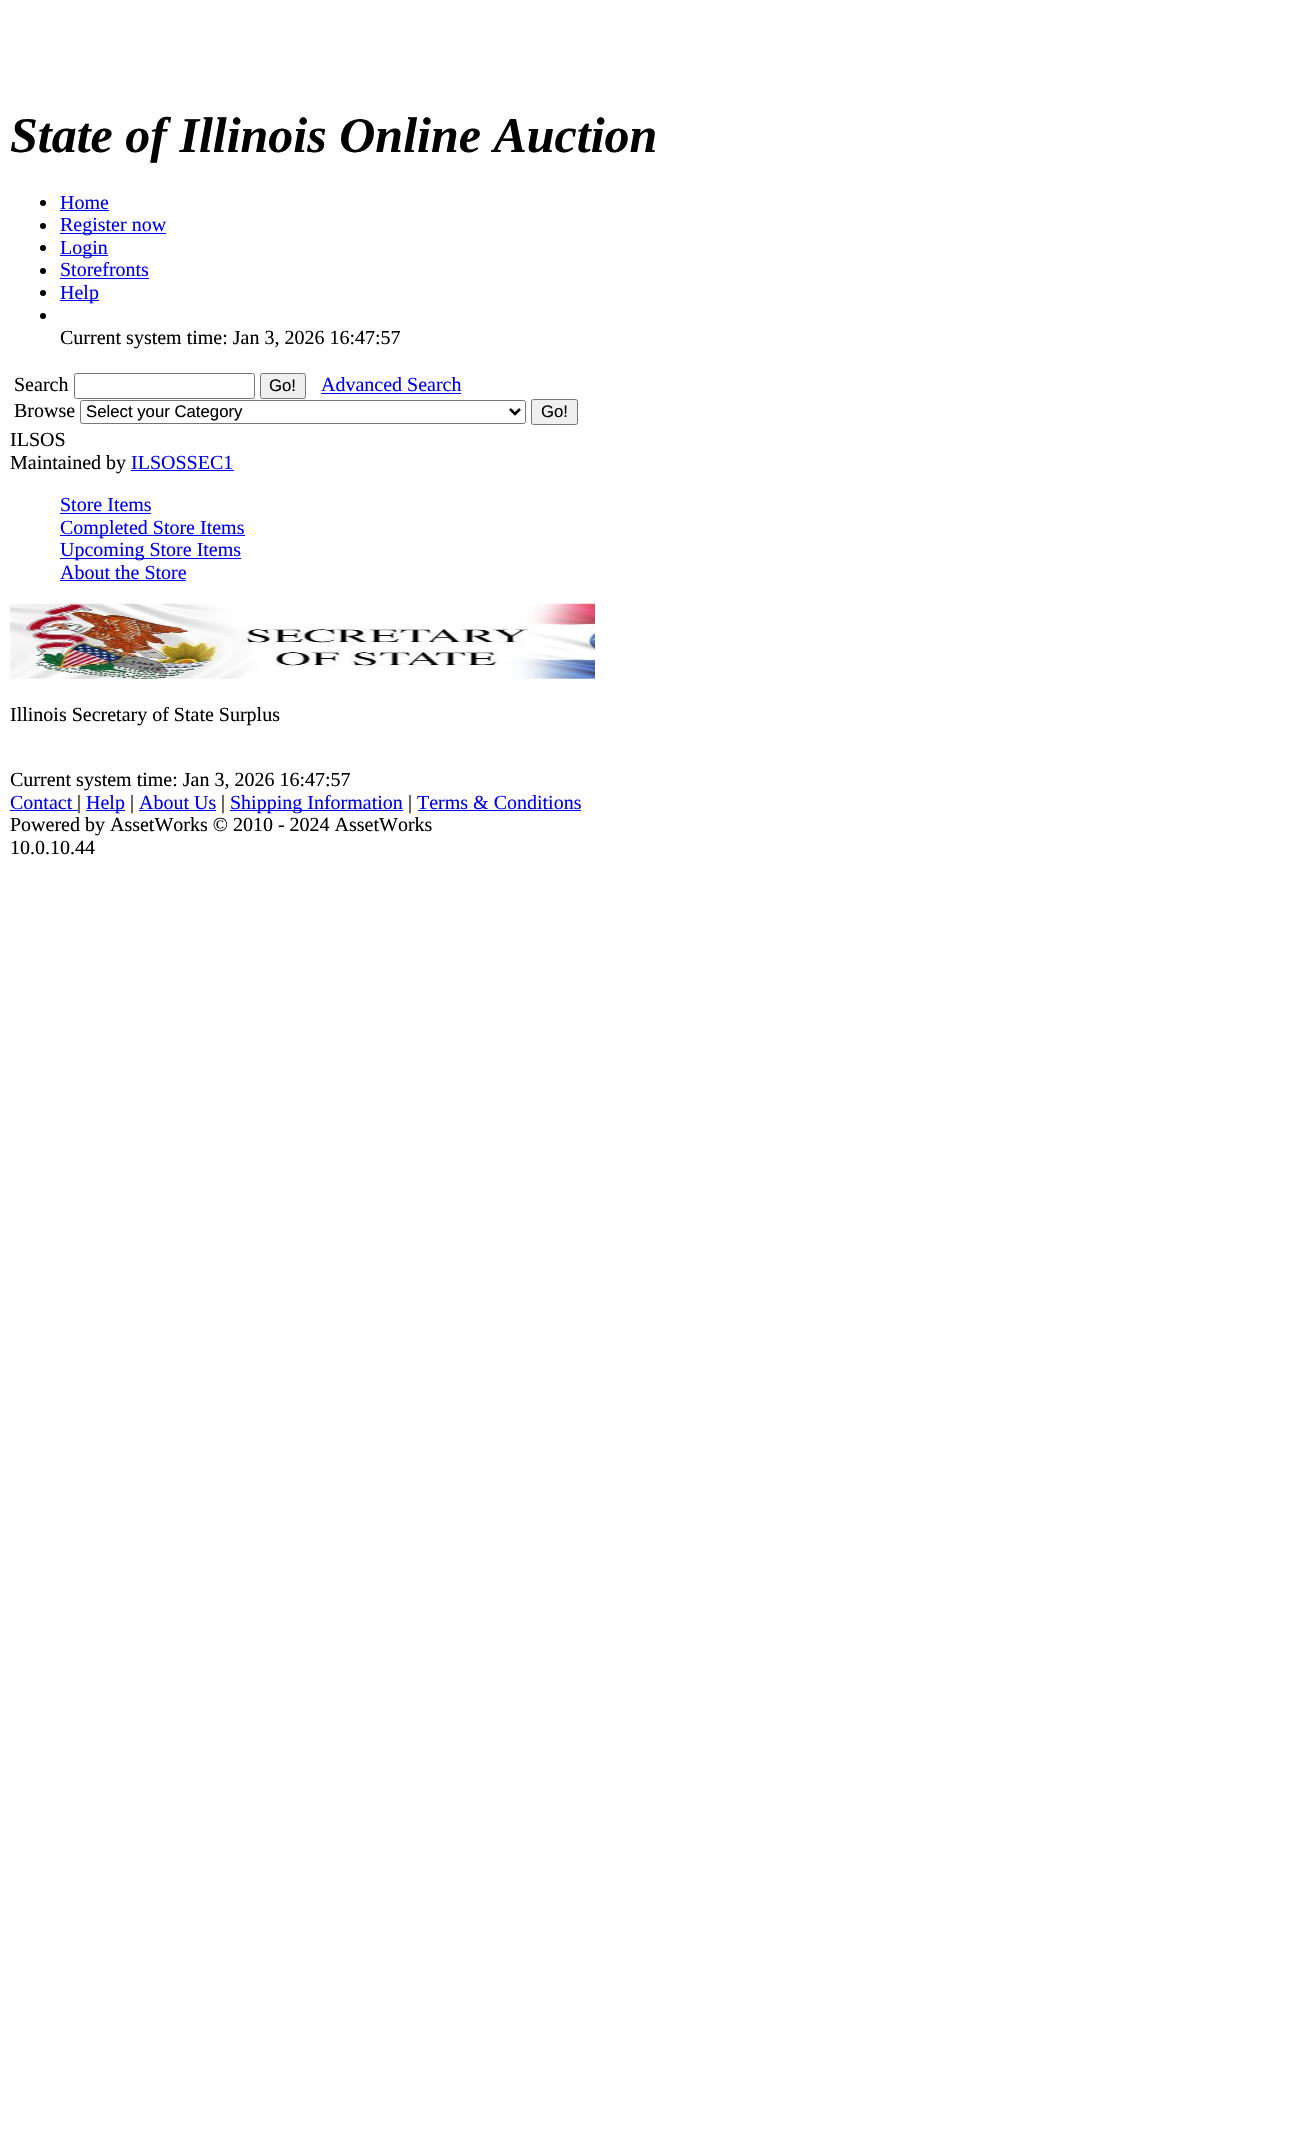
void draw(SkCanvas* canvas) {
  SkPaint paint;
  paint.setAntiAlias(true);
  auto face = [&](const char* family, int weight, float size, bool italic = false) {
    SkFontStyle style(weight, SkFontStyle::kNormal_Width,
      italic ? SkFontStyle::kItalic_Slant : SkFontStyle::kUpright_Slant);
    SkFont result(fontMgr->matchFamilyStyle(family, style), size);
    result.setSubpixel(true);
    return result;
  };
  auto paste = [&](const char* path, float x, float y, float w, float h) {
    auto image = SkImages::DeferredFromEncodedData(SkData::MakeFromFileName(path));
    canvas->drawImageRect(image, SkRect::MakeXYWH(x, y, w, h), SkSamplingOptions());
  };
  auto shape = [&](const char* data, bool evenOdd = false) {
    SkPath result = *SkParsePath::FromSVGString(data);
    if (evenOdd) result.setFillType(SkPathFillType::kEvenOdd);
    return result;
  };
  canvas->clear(0xffffffff);
  paint.setColor(0xff000000);
  canvas->drawCircle(43, 203, 3, paint);
  paint.setColor(0xff0000ee);
  canvas->drawRect(SkRect::MakeXYWH(60, 210, 49, 1), paint);
  paint.setColor(0xff000000);
  canvas->drawCircle(43, 226, 3, paint);
  paint.setColor(0xff0000ee);
  canvas->drawRect(SkRect::MakeXYWH(60, 233, 106, 1), paint);
  paint.setColor(0xff000000);
  canvas->drawCircle(43, 248, 3, paint);
  paint.setColor(0xff0000ee);
  canvas->drawRect(SkRect::MakeXYWH(60, 255, 48, 1), paint);
  paint.setColor(0xff000000);
  canvas->drawCircle(43, 271, 3, paint);
  paint.setColor(0xff0000ee);
  canvas->drawRect(SkRect::MakeXYWH(60, 278, 89, 1), paint);
  paint.setColor(0xff000000);
  canvas->drawCircle(43, 293, 3, paint);
  paint.setColor(0xff0000ee);
  canvas->drawRect(SkRect::MakeXYWH(60, 300, 39, 1), paint);
  paint.setColor(0xff000000);
  canvas->drawCircle(43, 316, 3, paint);
  paint.setStroke(true);
  paint.setStrokeWidth(1);
  paint.setColor(0xff767676);
  canvas->drawRoundRect(SkRect::MakeXYWH(74.5f, 373.5f, 180, 25), 2, 2, paint);
  paint.setStroke(false);
  paint.setColor(0xffefefef);
  canvas->drawRoundRect(SkRect::MakeXYWH(260.5f, 373.5f, 45, 25), 2, 2, paint);
  paint.setStroke(true);
  paint.setColor(0xff767676);
  canvas->drawRoundRect(SkRect::MakeXYWH(260.5f, 373.5f, 45, 25), 2, 2, paint);
  paint.setStroke(false);
  paint.setColor(0xff0000ee);
  canvas->drawRect(SkRect::MakeXYWH(321, 393, 140, 1), paint);
  paint.setStroke(true);
  paint.setColor(0xff767676);
  canvas->drawRoundRect(SkRect::MakeXYWH(80.5f, 400.5f, 445, 23), 2, 2, paint);
  paint.setStrokeWidth(2.5f);
  paint.setColor(0xff000000);
  canvas->drawPath(shape("M510 409L515 414L520 409"), paint);
  paint.setStroke(false);
  paint.setColor(0xffefefef);
  canvas->drawRoundRect(SkRect::MakeXYWH(531.5f, 399.5f, 46, 25), 2, 2, paint);
  paint.setStroke(true);
  paint.setStrokeWidth(1);
  paint.setColor(0xff767676);
  canvas->drawRoundRect(SkRect::MakeXYWH(531.5f, 399.5f, 46, 25), 2, 2, paint);
  paint.setStroke(false);
  {
    const struct { float x, y, w, h; SkColor color; } items[] = {
      {131, 470, 103, 1, 0xff0000ee},
      {60, 513, 91, 1, 0xff0000ee},
      {60, 535, 185, 1, 0xff0000ee},
      {60, 558, 181, 1, 0xff0000ee},
      {60, 580, 126, 1, 0xff0000ee},
    };
    for (auto [x, y, w, h, color] : items) {
      paint.setColor(color);
      canvas->drawRect(SkRect::MakeXYWH(x, y, w, h), paint);
    }
  }
  paste("img/1.png", 10, 603, 585, 76);
  {
    const struct { float x, y, w, h; SkColor color; } items[] = {
      {10, 810, 68, 1, 0xff0000ee},
      {86, 810, 39, 1, 0xff0000ee},
      {139, 810, 77, 1, 0xff0000ee},
      {230, 810, 173, 1, 0xff0000ee},
      {418, 810, 163, 1, 0xff0000ee},
    };
    for (auto [x, y, w, h, color] : items) {
      paint.setColor(color);
      canvas->drawRect(SkRect::MakeXYWH(x, y, w, h), paint);
    }
  }
  auto f0 = face("Liberation Serif", 700, 50, true);
  paint.setColor(0xff000000);
  canvas->drawString("State of Illinois Online Auction", 10, 152, f0, paint);
  auto f1 = face("Liberation Serif", 400, 20);
  paint.setColor(0xff0000ee);
  {
    const struct { const char* s; float x, y; } items[] = {
      {"Home", 60, 209},
      {"Register now", 60, 231},
      {"Login", 60, 254},
      {"Storefronts", 60, 276},
      {"Help", 60, 299},
    };
    for (auto [s, x, y] : items) {
      canvas->drawString(s, x, y, f1, paint);
    }
  }
  paint.setColor(0xff000000);
  canvas->drawString("Current system time: Jan 3, 2026 16:47:57", 60, 344, f1, paint);
  canvas->drawString("Search", 14, 391, f1, paint);
  auto f2 = face("Liberation Sans", 400, 16.75f);
  canvas->drawString("Go!", 269, 391, f2, paint);
  paint.setColor(0xff0000ee);
  canvas->drawString("Advanced Search", 321, 391, f1, paint);
  paint.setColor(0xff000000);
  canvas->drawString("Browse", 14, 417, f1, paint);
  canvas->drawString("Select your Category", 86, 417, f2, paint);
  canvas->drawString("Go!", 541, 417, f2, paint);
  canvas->drawString("ILSOS", 10, 446, f1, paint);
  canvas->drawString("Maintained by", 10, 469, f1, paint);
  paint.setColor(0xff0000ee);
  {
    const struct { const char* s; float x, y; } items[] = {
      {"ILSOSSEC1", 131, 469},
      {"Store Items", 60, 511},
      {"Completed Store Items", 60, 534},
      {"Upcoming Store Items", 60, 556},
      {"About the Store", 60, 579},
    };
    for (auto [s, x, y] : items) {
      canvas->drawString(s, x, y, f1, paint);
    }
  }
  paint.setColor(0xff000000);
  canvas->drawString("Illinois Secretary of State Surplus", 10, 721, f1, paint);
  canvas->drawString("Current system time: Jan 3, 2026 16:47:57", 10, 786, f1, paint);
  paint.setColor(0xff0000ee);
  canvas->drawString("Contact", 10, 809, f1, paint);
  paint.setColor(0xff000000);
  canvas->drawString("|", 77, 809, f1, paint);
  paint.setColor(0xff0000ee);
  canvas->drawString("Help", 86, 809, f1, paint);
  paint.setColor(0xff000000);
  canvas->drawString("|", 130, 809, f1, paint);
  paint.setColor(0xff0000ee);
  canvas->drawString("About Us", 139, 809, f1, paint);
  paint.setColor(0xff000000);
  canvas->drawString("|", 221, 809, f1, paint);
  paint.setColor(0xff0000ee);
  canvas->drawString("Shipping Information", 230, 809, f1, paint);
  paint.setColor(0xff000000);
  canvas->drawString("|", 408, 809, f1, paint);
  paint.setColor(0xff0000ee);
  canvas->drawString("Terms & Conditions", 417, 809, f1, paint);
  paint.setColor(0xff000000);
  canvas->drawString("Powered by AssetWorks © 2010 - 2024 AssetWorks", 10, 831, f1, paint);
  canvas->drawString("10.0.10.44", 10, 854, f1, paint);
}
